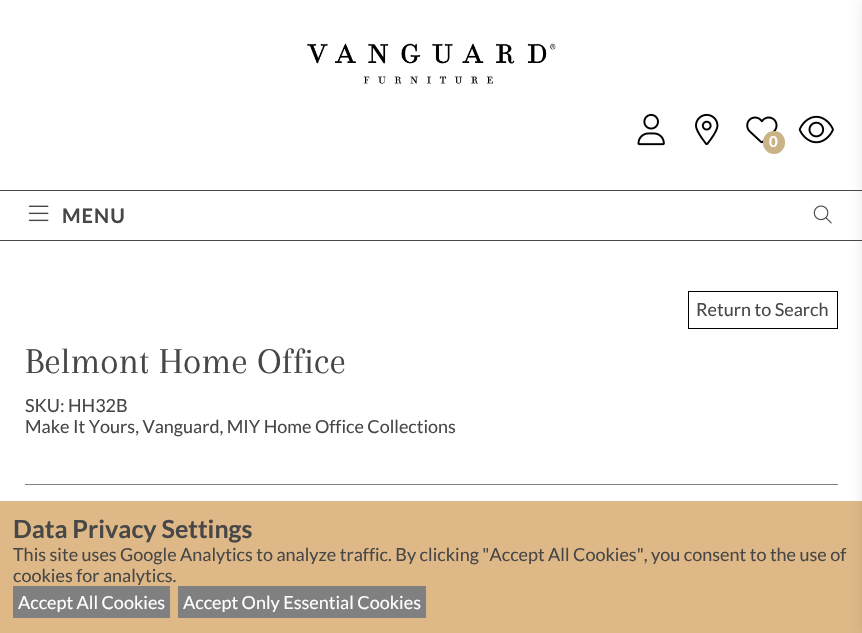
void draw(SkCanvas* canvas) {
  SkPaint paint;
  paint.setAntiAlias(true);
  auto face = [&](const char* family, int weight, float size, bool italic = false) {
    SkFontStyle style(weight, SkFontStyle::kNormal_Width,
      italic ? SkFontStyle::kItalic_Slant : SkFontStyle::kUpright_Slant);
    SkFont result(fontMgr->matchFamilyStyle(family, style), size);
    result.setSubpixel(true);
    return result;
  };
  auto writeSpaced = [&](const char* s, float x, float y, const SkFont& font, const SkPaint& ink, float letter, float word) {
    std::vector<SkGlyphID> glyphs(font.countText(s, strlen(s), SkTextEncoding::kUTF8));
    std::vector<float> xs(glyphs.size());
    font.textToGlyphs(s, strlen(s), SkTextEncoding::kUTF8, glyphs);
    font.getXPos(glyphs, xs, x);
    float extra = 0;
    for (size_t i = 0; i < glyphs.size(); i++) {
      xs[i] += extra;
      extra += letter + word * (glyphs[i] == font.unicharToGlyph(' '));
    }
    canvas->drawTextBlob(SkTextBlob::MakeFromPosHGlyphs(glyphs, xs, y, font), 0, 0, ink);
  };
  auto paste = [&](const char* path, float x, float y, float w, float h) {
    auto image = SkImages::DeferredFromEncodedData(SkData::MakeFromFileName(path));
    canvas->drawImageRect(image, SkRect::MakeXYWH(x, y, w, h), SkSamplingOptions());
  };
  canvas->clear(0xffffffff);
  paste("img/1.png", 307, 43, 249, 41);
  paste("img/2.png", 637, 113, 28, 33);
  paste("img/3.png", 695, 113, 24, 33);
  paste("img/4.png", 746, 116, 32, 28);
  paint.setColor(0xffcab387);
  canvas->drawRoundRect(SkRect::MakeXYWH(763, 131, 22, 23), 11, 11, paint);
  paste("img/5.png", 798, 115, 36, 29);
  paint.setColor(0xff474747);
  canvas->drawRect(SkRect::MakeXYWH(0, 190, 862, 1), paint);
  canvas->drawRect(SkRect::MakeXYWH(0, 240, 862, 1), paint);
  paste("img/6.png", 28, 205, 21, 17);
  paste("img/7.png", 813, 205, 19, 19);
  paint.setColor(0xffdeb887);
  canvas->drawRect(SkRect::MakeXYWH(0, 501, 862, 132), paint);
  paint.setColor(0x1a000000);
  paint.setMaskFilter(SkMaskFilter::MakeBlur(kNormal_SkBlurStyle, 6));
  canvas->drawRect(SkRect::MakeXYWH(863, 0, 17, 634), paint);
  paint.setMaskFilter(nullptr);
  paint.setStroke(true);
  paint.setStrokeWidth(1);
  paint.setColor(0xff000000);
  canvas->drawRect(SkRect::MakeXYWH(688.5f, 291.5f, 149, 37), paint);
  paint.setStroke(false);
  {
    const struct { float x, y, w, h; SkColor color; } items[] = {
      {25, 484, 813, 1, 0xff808080},
      {13, 586, 157, 32, 0xff808080},
      {178, 586, 248, 32, 0xff808080},
    };
    for (auto [x, y, w, h, color] : items) {
      paint.setColor(color);
      canvas->drawRect(SkRect::MakeXYWH(x, y, w, h), paint);
    }
  }
  auto f0 = face("Lato", 700, 15);
  paint.setColor(0xffffffff);
  canvas->drawString("0", 769, 147, f0, paint);
  auto f1 = face("Lato", 700, 20);
  paint.setColor(0xff474747);
  writeSpaced("MENU", 62, 223, f1, paint, 1, 0);
  auto f2 = face("Lato", 400, 18);
  canvas->drawString("Return to Search", 696, 316, f2, paint);
  auto f3 = face("Arapey", 400, 37.5f);
  canvas->drawString("Belmont Home Office", 25, 373, f3, paint);
  canvas->drawString("SKU: HH32B", 25, 412, f2, paint);
  canvas->drawString("Make It Yours, Vanguard, MIY Home Office Collections", 25, 433, f2, paint);
  auto f4 = face("Lato", 700, 25);
  canvas->drawString("Data Privacy Settings", 13, 538, f4, paint);
  canvas->drawString("This site uses Google Analytics to analyze traffic. By clicking \"Accept All Cookies\", you consent to the use of", 13, 561, f2, paint);
  canvas->drawString("cookies for analytics.", 13, 582, f2, paint);
  paint.setColor(0xffffffff);
  canvas->drawString("Accept All Cookies", 18, 609, f2, paint);
  canvas->drawString("Accept Only Essential Cookies", 183, 609, f2, paint);
}
